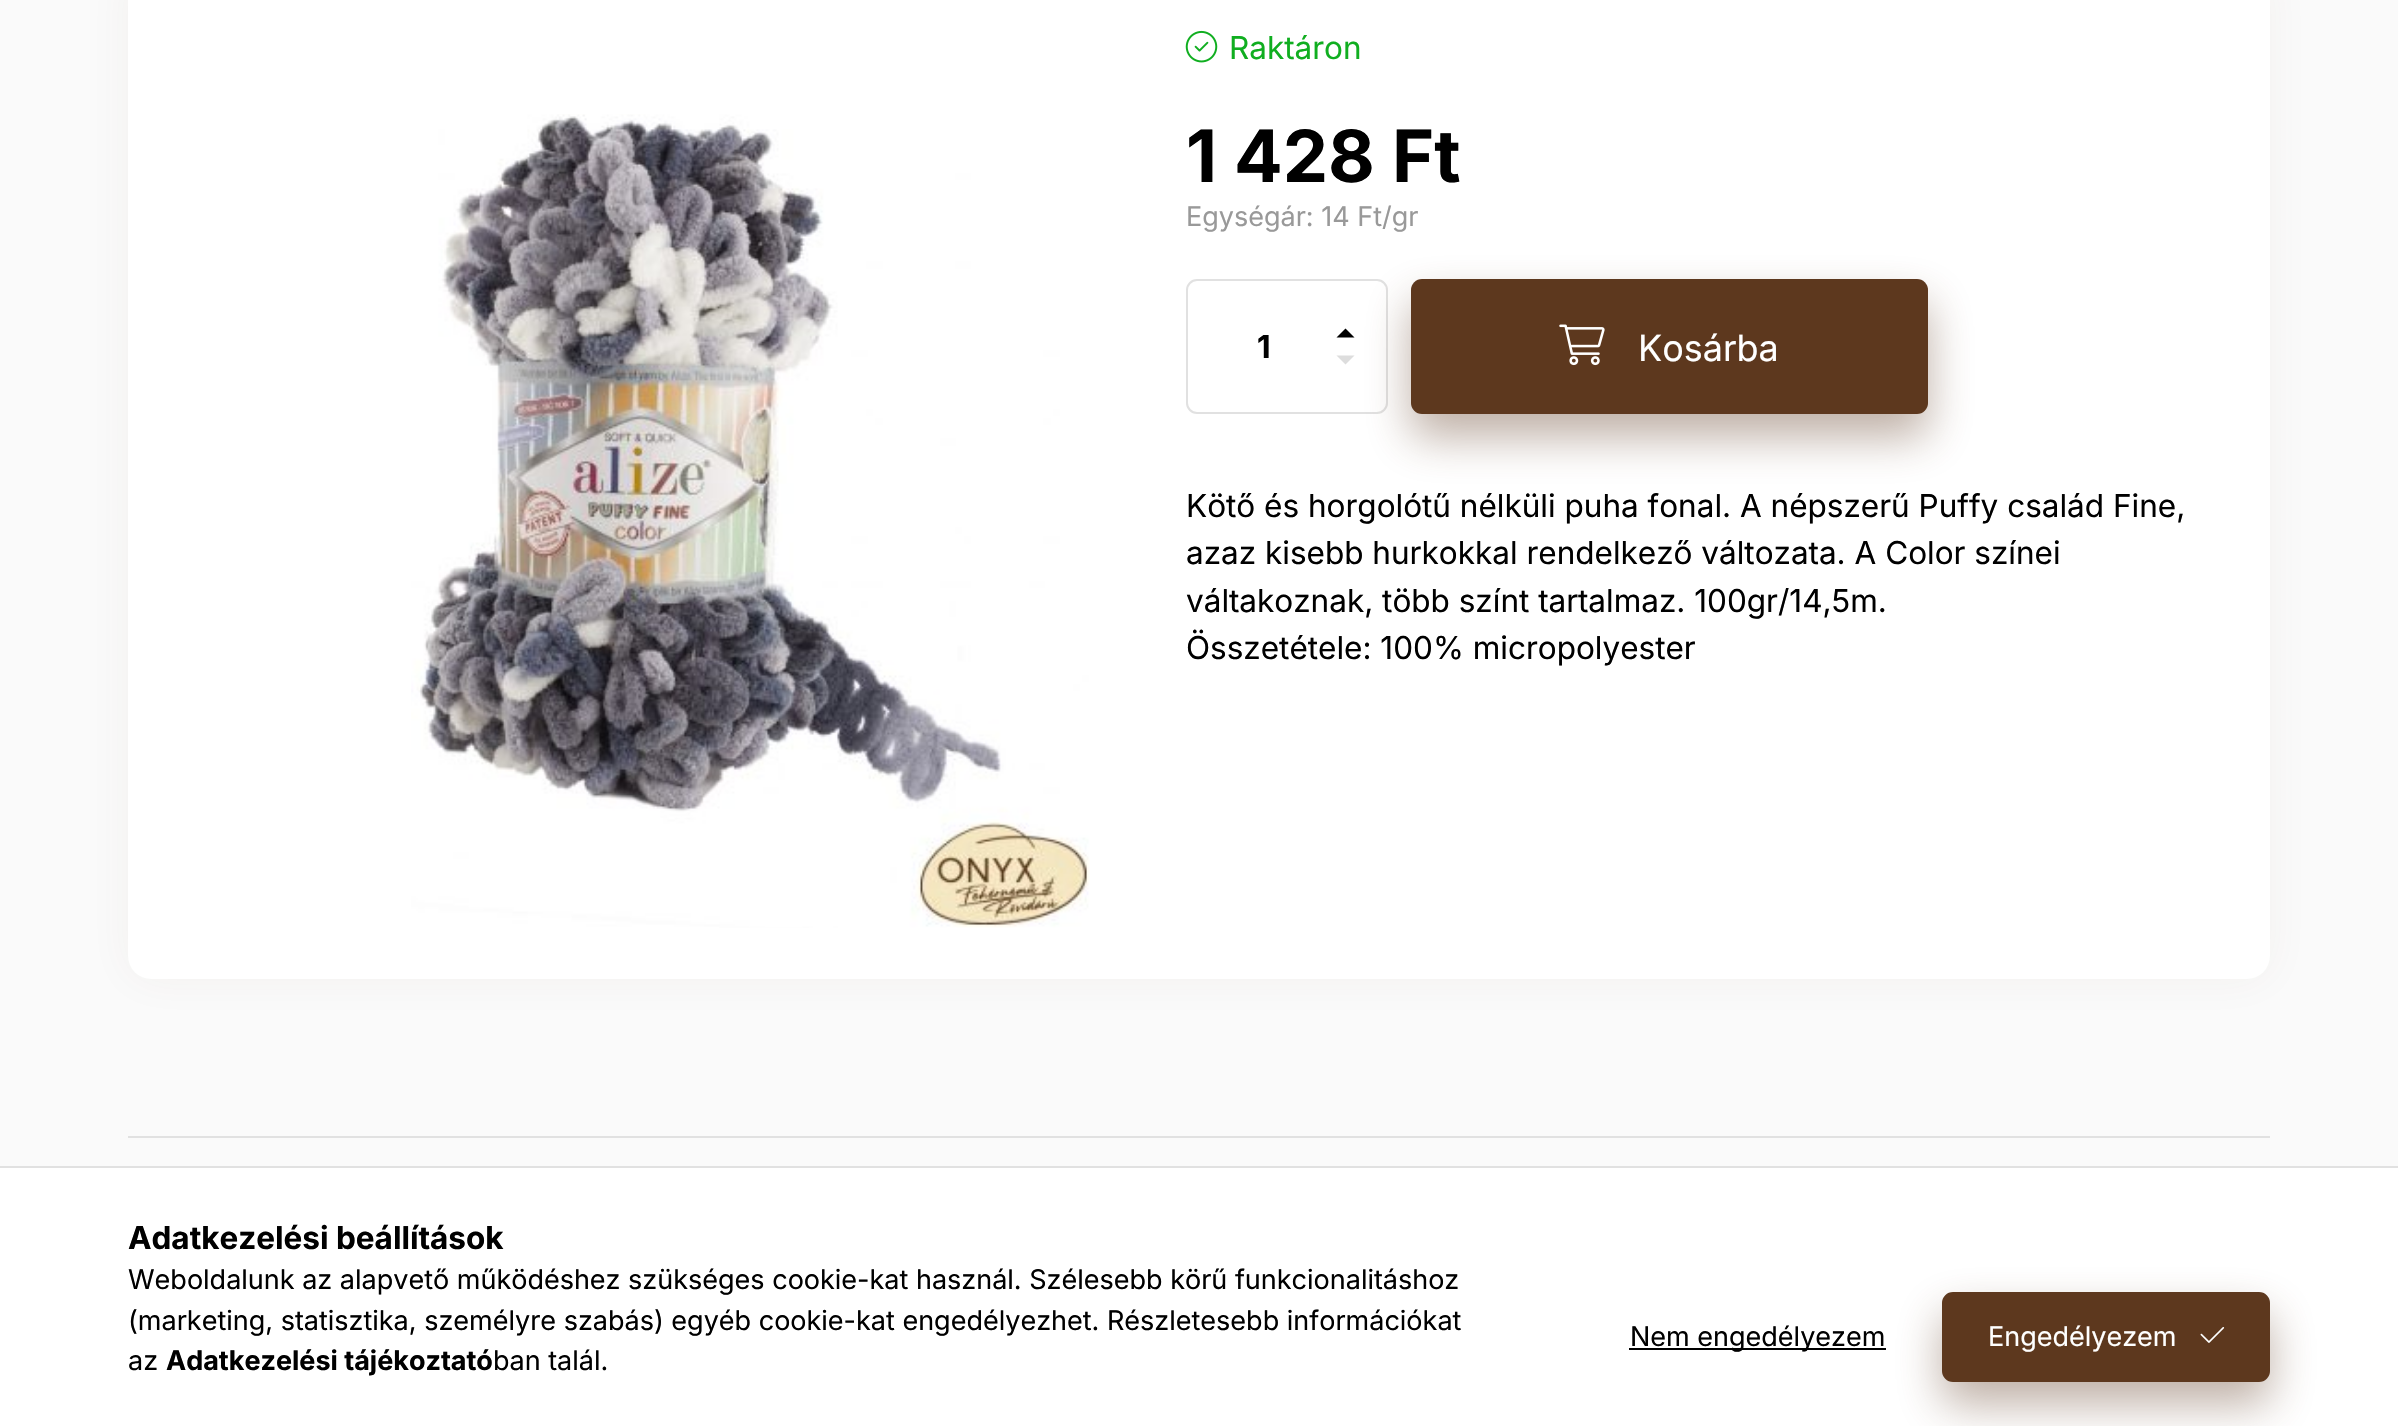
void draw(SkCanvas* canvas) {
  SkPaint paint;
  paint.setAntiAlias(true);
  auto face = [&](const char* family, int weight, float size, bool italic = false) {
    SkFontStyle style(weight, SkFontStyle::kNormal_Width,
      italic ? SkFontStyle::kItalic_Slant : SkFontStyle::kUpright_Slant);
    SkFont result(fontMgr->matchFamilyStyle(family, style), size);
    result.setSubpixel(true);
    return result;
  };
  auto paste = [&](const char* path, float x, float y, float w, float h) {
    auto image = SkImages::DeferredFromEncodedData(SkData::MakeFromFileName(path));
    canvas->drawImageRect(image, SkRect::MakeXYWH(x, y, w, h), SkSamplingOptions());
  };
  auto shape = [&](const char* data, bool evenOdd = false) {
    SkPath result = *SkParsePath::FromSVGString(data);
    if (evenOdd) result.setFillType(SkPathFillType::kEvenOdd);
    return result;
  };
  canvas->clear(0xfffafafa);
  paint.setColor(0x0d5d381e);
  paint.setMaskFilter(SkMaskFilter::MakeBlur(kNormal_SkBlurStyle, 22.5f));
  canvas->drawRoundRect(SkRect::MakeXYWH(128, -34, 2142, 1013), 23, 23, paint);
  paint.setMaskFilter(nullptr);
  paint.setColor(0xffffffff);
  canvas->drawRoundRect(SkRect::MakeXYWH(128, -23, 2142, 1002), 23, 23, paint);
  paste("img/1.png", 411, 114, 679, 814);
  paste("img/2.png", 1185, 30, 33, 33);
  paint.setStroke(true);
  paint.setStrokeWidth(2);
  paint.setColor(0xffe1e1e1);
  canvas->drawRoundRect(SkRect::MakeXYWH(1187, 280, 200, 133), 10, 10, paint);
  paint.setStroke(false);
  paint.setColor(0xff000000);
  canvas->drawPath(shape("M1354.5 337.5H1336.5L1345.5 328.5Z"), paint);
  paint.setColor(0xffdddddd);
  canvas->drawPath(shape("M1336.5 355.5H1354.5L1345.5 364.5Z"), paint);
  paint.setColor(0x665d381e);
  paint.setMaskFilter(SkMaskFilter::MakeBlur(kNormal_SkBlurStyle, 22.5f));
  canvas->drawRoundRect(SkRect::MakeXYWH(1411, 302, 517, 135), 11, 11, paint);
  paint.setMaskFilter(nullptr);
  paint.setColor(0xff5d381e);
  canvas->drawRoundRect(SkRect::MakeXYWH(1411, 279, 517, 135), 11, 11, paint);
  paste("img/3.png", 1559, 324, 46, 42);
  {
    const struct { float x, y, w, h; SkColor color; } items[] = {
      {128, 1136, 2142, 2, 0xffe1e1e1},
      {0, 1168, 2398, 258, 0xffffffff},
      {0, 1166, 2398, 2, 0xffe1e1e1},
      {1629, 1348, 257, 2, 0xff000000},
    };
    for (auto [x, y, w, h, color] : items) {
      paint.setColor(color);
      canvas->drawRect(SkRect::MakeXYWH(x, y, w, h), paint);
    }
  }
  paint.setColor(0x665d381e);
  paint.setMaskFilter(SkMaskFilter::MakeBlur(kNormal_SkBlurStyle, 22.5f));
  canvas->drawRoundRect(SkRect::MakeXYWH(1942, 1314, 328, 90), 11, 11, paint);
  paint.setMaskFilter(nullptr);
  paint.setColor(0xff5d381e);
  canvas->drawRoundRect(SkRect::MakeXYWH(1943, 1293, 326, 88), 10, 10, paint);
  paint.setStroke(true);
  canvas->drawRoundRect(SkRect::MakeXYWH(1943, 1293, 326, 88), 10, 10, paint);
  paste("img/4.png", 2200, 1327, 25, 16);
  auto f0 = face("Inter", 400, 31.5f);
  paint.setStroke(false);
  paint.setColor(0xff10ae20);
  canvas->drawString("Raktáron", 1229, 59, f0, paint);
  auto f1 = face("Inter", 700, 72);
  paint.setColor(0xff000000);
  canvas->drawString("1 428 Ft", 1186, 182, f1, paint);
  auto f2 = face("Inter", 400, 27);
  paint.setColor(0xff999999);
  canvas->drawString("Egységár: 14 Ft/gr", 1186, 226, f2, paint);
  auto f3 = face("Inter", 700, 31.5f);
  paint.setColor(0xff000000);
  canvas->drawString("1", 1257, 358, f3, paint);
  auto f4 = face("Inter", 400, 36);
  paint.setColor(0xffffffff);
  canvas->drawString("Kosárba", 1638, 361, f4, paint);
  paint.setColor(0xff000000);
  {
    const struct { const char* s; float x, y; } items[] = {
      {"Kötő és horgolótű nélküli puha fonal. A népszerű Puffy család Fine,", 1186, 517},
      {"azaz kisebb hurkokkal rendelkező változata. A Color színei", 1186, 564},
      {"váltakoznak, több színt tartalmaz. 100gr/14,5m.", 1186, 612},
      {"Összetétele: 100% micropolyester", 1186, 659},
    };
    for (auto [s, x, y] : items) {
      canvas->drawString(s, x, y, f0, paint);
    }
  }
  canvas->drawString("Adatkezelési beállítások", 128, 1249, f3, paint);
  {
    const struct { const char* s; float x, y; } items[] = {
      {"Weboldalunk az alapvető működéshez szükséges cookie-kat használ. Szélesebb körű funkcionalitáshoz", 128, 1289},
      {"(marketing, statisztika, személyre szabás) egyéb cookie-kat engedélyezhet. Részletesebb információkat", 128, 1330},
      {"az", 128, 1370},
    };
    for (auto [s, x, y] : items) {
      canvas->drawString(s, x, y, f2, paint);
    }
  }
  auto f5 = face("Inter", 700, 27);
  canvas->drawString("Adatkezelési tájékoztató", 166, 1370, f5, paint);
  canvas->drawString("ban talál.", 493, 1370, f2, paint);
  canvas->drawString("Nem engedélyezem", 1630, 1346, f2, paint);
  paint.setColor(0xffffffff);
  canvas->drawString("Engedélyezem", 1988, 1346, f2, paint);
}
